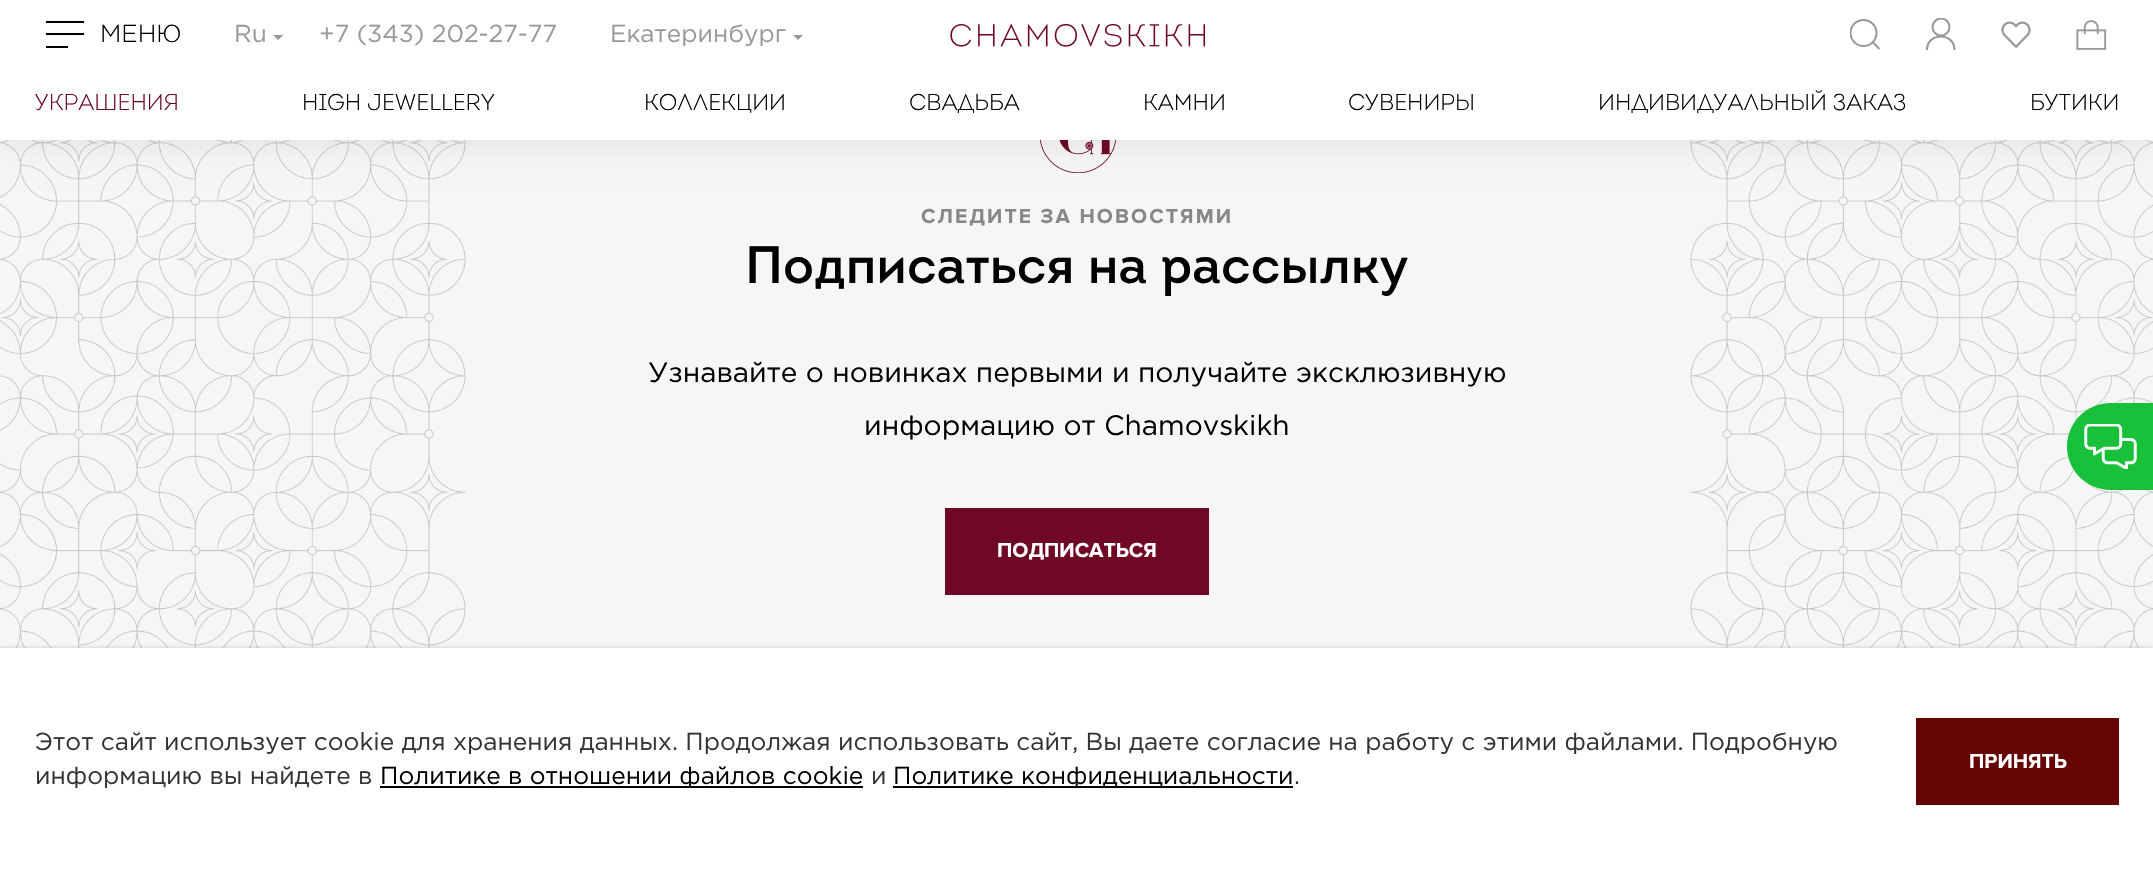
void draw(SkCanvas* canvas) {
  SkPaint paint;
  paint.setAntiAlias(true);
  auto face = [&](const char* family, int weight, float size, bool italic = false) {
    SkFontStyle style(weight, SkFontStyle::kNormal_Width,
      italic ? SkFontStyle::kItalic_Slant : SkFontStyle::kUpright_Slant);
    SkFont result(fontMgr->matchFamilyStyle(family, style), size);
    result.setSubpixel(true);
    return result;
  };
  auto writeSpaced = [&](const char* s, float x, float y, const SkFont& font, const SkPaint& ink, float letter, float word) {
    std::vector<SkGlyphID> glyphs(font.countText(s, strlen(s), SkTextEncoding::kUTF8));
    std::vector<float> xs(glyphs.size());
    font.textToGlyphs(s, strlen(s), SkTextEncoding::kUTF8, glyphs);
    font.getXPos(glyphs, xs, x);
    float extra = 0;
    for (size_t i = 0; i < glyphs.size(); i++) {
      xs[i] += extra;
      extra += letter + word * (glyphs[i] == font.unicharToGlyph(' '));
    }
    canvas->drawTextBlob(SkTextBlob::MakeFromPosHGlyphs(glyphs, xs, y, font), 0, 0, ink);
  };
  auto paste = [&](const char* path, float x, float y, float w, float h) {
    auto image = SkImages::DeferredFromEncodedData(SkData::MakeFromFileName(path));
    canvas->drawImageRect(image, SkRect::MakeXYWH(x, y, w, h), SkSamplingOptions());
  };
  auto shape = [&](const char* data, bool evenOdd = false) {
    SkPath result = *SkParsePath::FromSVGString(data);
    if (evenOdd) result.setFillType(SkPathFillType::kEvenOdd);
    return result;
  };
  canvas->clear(0xfff6f6f6);
  paste("img/4.png", 0, 140, 466, 508);
  paste("img/5.png", 1040, 140, 77, 33);
  paste("img/6.png", 1690, 140, 463, 508);
  paint.setColor(0x1a000000);
  paint.setMaskFilter(SkMaskFilter::MakeBlur(kNormal_SkBlurStyle, 17.5f));
  canvas->drawRect(SkRect::MakeXYWH(0, 0, 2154, 140), paint);
  paint.setMaskFilter(nullptr);
  {
    const struct { float x, y, w, h; SkColor color; } items[] = {
      {0, 0, 2153, 140, 0xffffffff},
      {46, 21, 38, 2, 0xff000000},
      {46, 33, 38, 2, 0xff000000},
      {46, 46, 22, 2, 0xff000000},
    };
    for (auto [x, y, w, h, color] : items) {
      paint.setColor(color);
      canvas->drawRect(SkRect::MakeXYWH(x, y, w, h), paint);
    }
  }
  paint.setColor(0xff999999);
  canvas->drawPath(shape("M273 35H283.5L278 40Z"), paint);
  canvas->drawPath(shape("M793 35H803L798 40Z"), paint);
  paste("img/1.png", 950, 23, 256, 24);
  canvas->save();
  canvas->clipRect(SkRect::MakeXYWH(1850, 19, 31, 32));
  paint.setStroke(true);
  paint.setStrokeWidth(2);
  canvas->drawCircle(1863.5f, 33, 13, paint);
  canvas->restore();
  canvas->drawPath(shape("M1872.5 42L1879.5 49"), paint);
  canvas->save();
  canvas->clipRect(SkRect::MakeXYWH(1925, 18, 32, 35));
  paint.setStrokeWidth(2.1f);
  canvas->drawCircle(1941, 27, 8.5f, paint);
  canvas->restore();
  canvas->drawPath(shape("M1954.5 50C1954.5 32 1927 32 1927 50"), paint);
  paste("img/2.png", 2001, 21, 30, 28);
  paste("img/3.png", 2076, 20, 31, 30);
  paint.setStroke(false);
  paint.setColor(0xff6f0824);
  canvas->drawRect(SkRect::MakeXYWH(945, 508, 264, 87), paint);
  paint.setColor(0xff18c139);
  canvas->drawPath(shape("M2110.5 403H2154V490H2110.5C2086.5 490 2067 470.5 2067 446.5C2067 422.5 2086.5 403 2110.5 403Z"), paint);
  paste("img/7.png", 2084, 424, 53, 45);
  paint.setColor(0x33000000);
  paint.setMaskFilter(SkMaskFilter::MakeBlur(kNormal_SkBlurStyle, 2));
  canvas->drawRect(SkRect::MakeXYWH(0, 648, 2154, 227), paint);
  paint.setMaskFilter(nullptr);
  {
    const struct { float x, y, w, h; SkColor color; } items[] = {
      {0, 648, 2153, 226, 0xffffffff},
      {380, 786, 483, 2, 0xff000000},
      {893, 786, 400, 2, 0xff000000},
      {1916, 718, 203, 87, 0xff650405},
    };
    for (auto [x, y, w, h, color] : items) {
      paint.setColor(color);
      canvas->drawRect(SkRect::MakeXYWH(x, y, w, h), paint);
    }
  }
  auto f0 = face("Gotham", 300, 24.5f);
  paint.setColor(0xff000000);
  canvas->drawString("МЕНЮ", 100, 42, f0, paint);
  auto f1 = face("Gotham", 400, 24.5f);
  paint.setColor(0xff999999);
  {
    const struct { const char* s; float x, y; } items[] = {
      {"Ru", 234, 42},
      {"+7 (343) 202-27-77", 319, 42},
      {"Екатеринбург", 610, 42},
    };
    for (auto [s, x, y] : items) {
      canvas->drawString(s, x, y, f1, paint);
    }
  }
  auto f2 = face("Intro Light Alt", 300, 22.75f);
  paint.setColor(0xff6f0824);
  canvas->drawString("УКРАШЕНИЯ", 35, 110, f2, paint);
  paint.setColor(0xff000000);
  {
    const struct { const char* s; float x, y; } items[] = {
      {"HIGH JEWELLERY", 302, 110},
      {"КОЛЛЕКЦИИ", 644, 110},
      {"СВАДЬБА", 909, 110},
      {"КАМНИ", 1143, 110},
      {"СУВЕНИРЫ", 1348, 110},
      {"ИНДИВИДУАЛЬНЫЙ ЗАКАЗ", 1598, 110},
      {"БУТИКИ", 2030, 110},
    };
    for (auto [s, x, y] : items) {
      canvas->drawString(s, x, y, f2, paint);
    }
  }
  auto f3 = face("Proxima Nova", 700, 21);
  paint.setColor(0xff888888);
  writeSpaced("СЛЕДИТЕ ЗА НОВОСТЯМИ", 921, 223, f3, paint, 2.1f, 0);
  auto f4 = face("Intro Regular", 400, 52.5f);
  paint.setColor(0xff000000);
  canvas->drawString("Подписаться на рассылку", 745, 283, f4, paint);
  auto f5 = face("Gotham", 400, 28);
  canvas->drawString("Узнавайте о новинках первыми и получайте эксклюзивную", 648, 382, f5, paint);
  canvas->drawString("информацию от Chamovskikh", 864, 435, f5, paint);
  paint.setColor(0xffffffff);
  canvas->drawString("ПОДПИСАТЬСЯ", 997, 557, f3, paint);
  paint.setColor(0xff333333);
  canvas->drawString("Этот сайт использует cookie для хранения данных. Продолжая использовать сайт, Вы даете согласие на работу с этими файлами. Подробную", 35, 750, f1, paint);
  canvas->drawString("информацию вы найдете в", 35, 784, f1, paint);
  paint.setColor(0xff000000);
  canvas->drawString("Политике в отношении файлов cookie", 380, 784, f1, paint);
  paint.setColor(0xff333333);
  canvas->drawString("и", 871, 784, f1, paint);
  paint.setColor(0xff000000);
  canvas->drawString("Политике конфиденциальности", 893, 784, f1, paint);
  paint.setColor(0xff333333);
  canvas->drawString(".", 1294, 784, f1, paint);
  paint.setColor(0xffffffff);
  canvas->drawString("ПРИНЯТЬ", 1969, 768, f3, paint);
}
